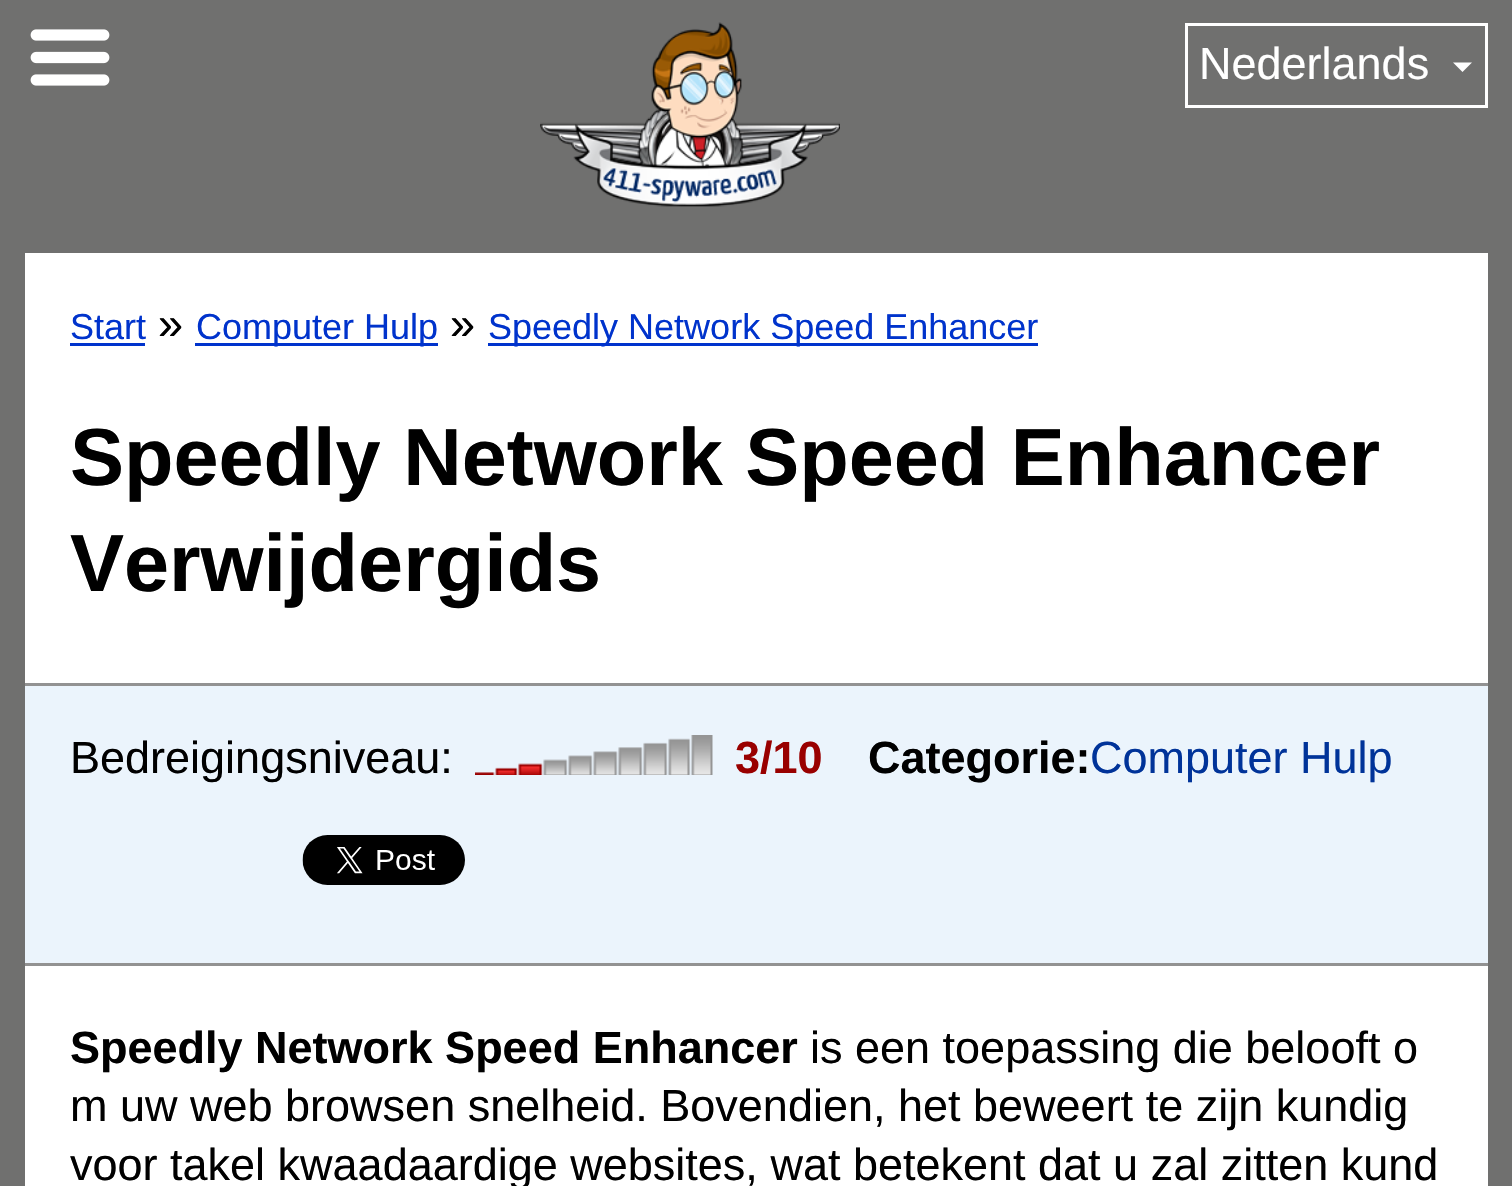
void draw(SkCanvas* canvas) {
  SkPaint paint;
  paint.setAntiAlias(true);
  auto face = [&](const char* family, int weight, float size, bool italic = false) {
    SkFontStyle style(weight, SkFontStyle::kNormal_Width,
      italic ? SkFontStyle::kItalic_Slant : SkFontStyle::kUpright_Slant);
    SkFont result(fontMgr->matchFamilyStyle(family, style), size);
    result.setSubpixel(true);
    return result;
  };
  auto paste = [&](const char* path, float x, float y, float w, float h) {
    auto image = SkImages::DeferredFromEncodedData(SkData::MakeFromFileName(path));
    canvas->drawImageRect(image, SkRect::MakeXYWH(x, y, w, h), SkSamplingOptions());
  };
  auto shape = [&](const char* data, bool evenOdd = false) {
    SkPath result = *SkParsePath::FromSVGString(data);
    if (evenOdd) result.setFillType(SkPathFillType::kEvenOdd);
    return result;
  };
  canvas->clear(0xff70706f);
  paste("img/1.png", 540, 22, 300, 185);
  paste("img/2.png", 30, 29, 80, 57);
  paint.setStroke(true);
  paint.setStrokeWidth(3);
  paint.setColor(0xffffffff);
  canvas->drawRect(SkRect::MakeXYWH(1186.5f, 24.5f, 300, 82), paint);
  paint.setStroke(false);
  canvas->drawPath(shape("M1453 62.5L1462.5 72L1472 62.5Z"), paint);
  {
    const struct { float x, y, w, h; SkColor color; } items[] = {
      {25, 253, 1463, 933, 0xffffffff},
      {70, 343, 75, 3, 0xff0033cc},
      {195, 343, 243, 3, 0xff0033cc},
      {488, 343, 550, 3, 0xff0033cc},
      {25, 686, 1463, 277, 0xffebf4fc},
      {25, 683, 1463, 3, 0xff929292},
      {25, 963, 1463, 3, 0xff929292},
    };
    for (auto [x, y, w, h, color] : items) {
      paint.setColor(color);
      canvas->drawRect(SkRect::MakeXYWH(x, y, w, h), paint);
    }
  }
  paste("img/3.png", 475, 735, 238, 40);
  paste("img/4.png", 302, 835, 163, 50);
  auto f0 = face("Liberation Sans", 400, 45);
  paint.setColor(0xffffffff);
  canvas->drawString("Nederlands", 1199, 79, f0, paint);
  auto f1 = face("Liberation Sans", 400, 36);
  paint.setColor(0xff0033cc);
  canvas->drawString("Start", 70, 339, f1, paint);
  paint.setColor(0xff000000);
  canvas->drawString("»", 158, 339, f0, paint);
  paint.setColor(0xff0033cc);
  canvas->drawString("Computer Hulp", 196, 339, f1, paint);
  paint.setColor(0xff000000);
  canvas->drawString("»", 450, 339, f0, paint);
  paint.setColor(0xff0033cc);
  canvas->drawString("Speedly Network Speed Enhancer", 488, 339, f1, paint);
  auto f2 = face("Liberation Sans", 700, 81);
  paint.setColor(0xff000000);
  canvas->drawString("Speedly Network Speed Enhancer", 70, 485, f2, paint);
  canvas->drawString("Verwijdergids", 70, 591, f2, paint);
  canvas->drawString("Bedreigingsniveau:", 70, 773, f0, paint);
  auto f3 = face("Liberation Sans", 700, 45);
  paint.setColor(0xff990000);
  canvas->drawString("3/10", 735, 773, f3, paint);
  paint.setColor(0xff000000);
  canvas->drawString("Categorie:", 868, 773, f3, paint);
  paint.setColor(0xff003399);
  canvas->drawString("Computer Hulp", 1090, 773, f0, paint);
  paint.setColor(0xff000000);
  canvas->drawString("Speedly Network Speed Enhancer", 70, 1063, f3, paint);
  {
    const struct { const char* s; float x, y; } items[] = {
      {"is een toepassing die belooft o", 810, 1063},
      {"m uw web browsen snelheid. Bovendien, het beweert te zijn kundig", 70, 1121},
      {"voor takel kwaadaardige websites, wat betekent dat u zal zitten kund", 70, 1180},
    };
    for (auto [s, x, y] : items) {
      canvas->drawString(s, x, y, f0, paint);
    }
  }
}
